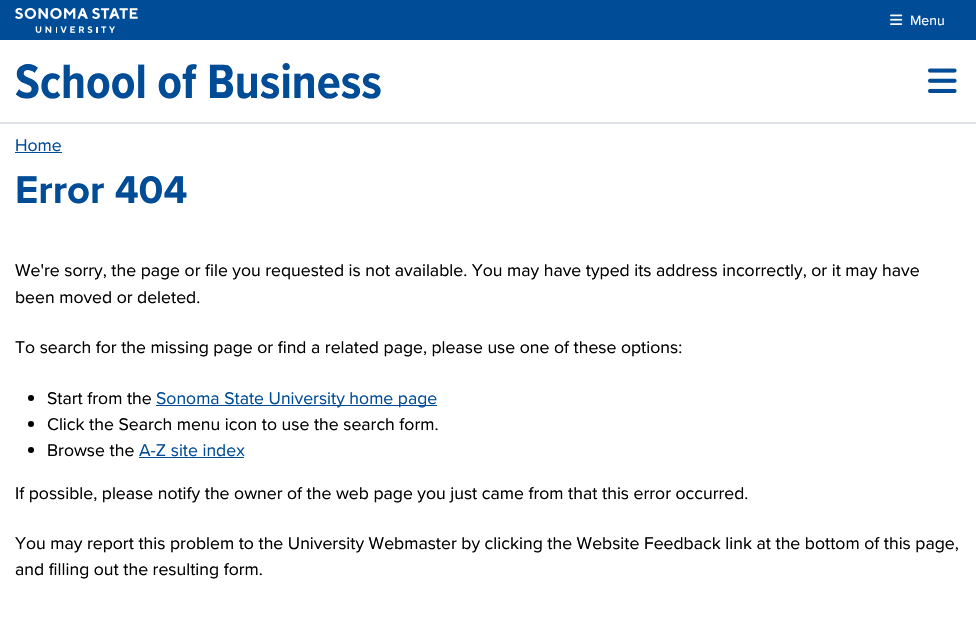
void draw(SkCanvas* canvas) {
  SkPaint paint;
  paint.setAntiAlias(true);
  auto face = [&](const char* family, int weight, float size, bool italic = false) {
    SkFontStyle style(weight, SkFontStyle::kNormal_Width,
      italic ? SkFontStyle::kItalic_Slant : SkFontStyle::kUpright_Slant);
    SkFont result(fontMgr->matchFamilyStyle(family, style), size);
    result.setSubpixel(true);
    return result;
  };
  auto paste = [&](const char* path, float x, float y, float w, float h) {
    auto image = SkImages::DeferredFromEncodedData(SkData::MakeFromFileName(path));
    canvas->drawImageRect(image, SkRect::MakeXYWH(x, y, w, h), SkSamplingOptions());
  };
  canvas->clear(0xffffffff);
  paint.setColor(0xffdee2e6);
  canvas->drawRect(SkRect::MakeXYWH(0, 122, 976, 2), paint);
  paint.setColor(0xff004c97);
  canvas->drawRect(SkRect::MakeXYWH(0, 0, 976, 40), paint);
  paste("img/1.png", 15, 8, 123, 25);
  paste("img/2.png", 890, 14, 13, 11);
  paste("img/3.png", 928, 68, 29, 25);
  canvas->drawRect(SkRect::MakeXYWH(15, 152, 47, 1), paint);
  paint.setColor(0xff000000);
  canvas->drawCircle(31, 398, 3, paint);
  paint.setColor(0xff004c97);
  canvas->drawRect(SkRect::MakeXYWH(156, 405, 281, 1), paint);
  paint.setColor(0xff000000);
  canvas->drawCircle(31, 424, 3, paint);
  canvas->drawCircle(31, 450, 3, paint);
  paint.setColor(0xff004c97);
  canvas->drawRect(SkRect::MakeXYWH(139, 457, 105, 1), paint);
  auto f0 = face("Proxima Nova", 400, 14);
  paint.setColor(0xffffffff);
  canvas->drawString("Menu", 910, 25, f0, paint);
  auto f1 = face("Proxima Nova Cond", 700, 50);
  paint.setColor(0xff004c97);
  canvas->drawString("School of Business", 15, 98, f1, paint);
  auto f2 = face("Proxima Nova", 400, 17.6f);
  canvas->drawString("Home", 15, 151, f2, paint);
  auto f3 = face("Proxima Nova", 700, 40);
  canvas->drawString("Error 404", 15, 203, f3, paint);
  paint.setColor(0xff000000);
  {
    const struct { const char* s; float x, y; } items[] = {
      {"We're sorry, the page or file you requested is not available. You may have typed its address incorrectly, or it may have", 15, 276},
      {"been moved or deleted.", 15, 303},
      {"To search for the missing page or find a related page, please use one of these options:", 15, 353},
      {"Start from the", 47, 404},
    };
    for (auto [s, x, y] : items) {
      canvas->drawString(s, x, y, f2, paint);
    }
  }
  paint.setColor(0xff004c97);
  canvas->drawString("Sonoma State University home page", 156, 404, f2, paint);
  paint.setColor(0xff000000);
  canvas->drawString("Click the Search menu icon to use the search form.", 47, 430, f2, paint);
  canvas->drawString("Browse the", 47, 456, f2, paint);
  paint.setColor(0xff004c97);
  canvas->drawString("A-Z site index", 139, 456, f2, paint);
  paint.setColor(0xff000000);
  {
    const struct { const char* s; float x, y; } items[] = {
      {"If possible, please notify the owner of the web page you just came from that this error occurred.", 15, 499},
      {"You may report this problem to the University Webmaster by clicking the Website Feedback link at the bottom of this page,", 15, 549},
      {"and filling out the resulting form.", 15, 575},
    };
    for (auto [s, x, y] : items) {
      canvas->drawString(s, x, y, f2, paint);
    }
  }
}
